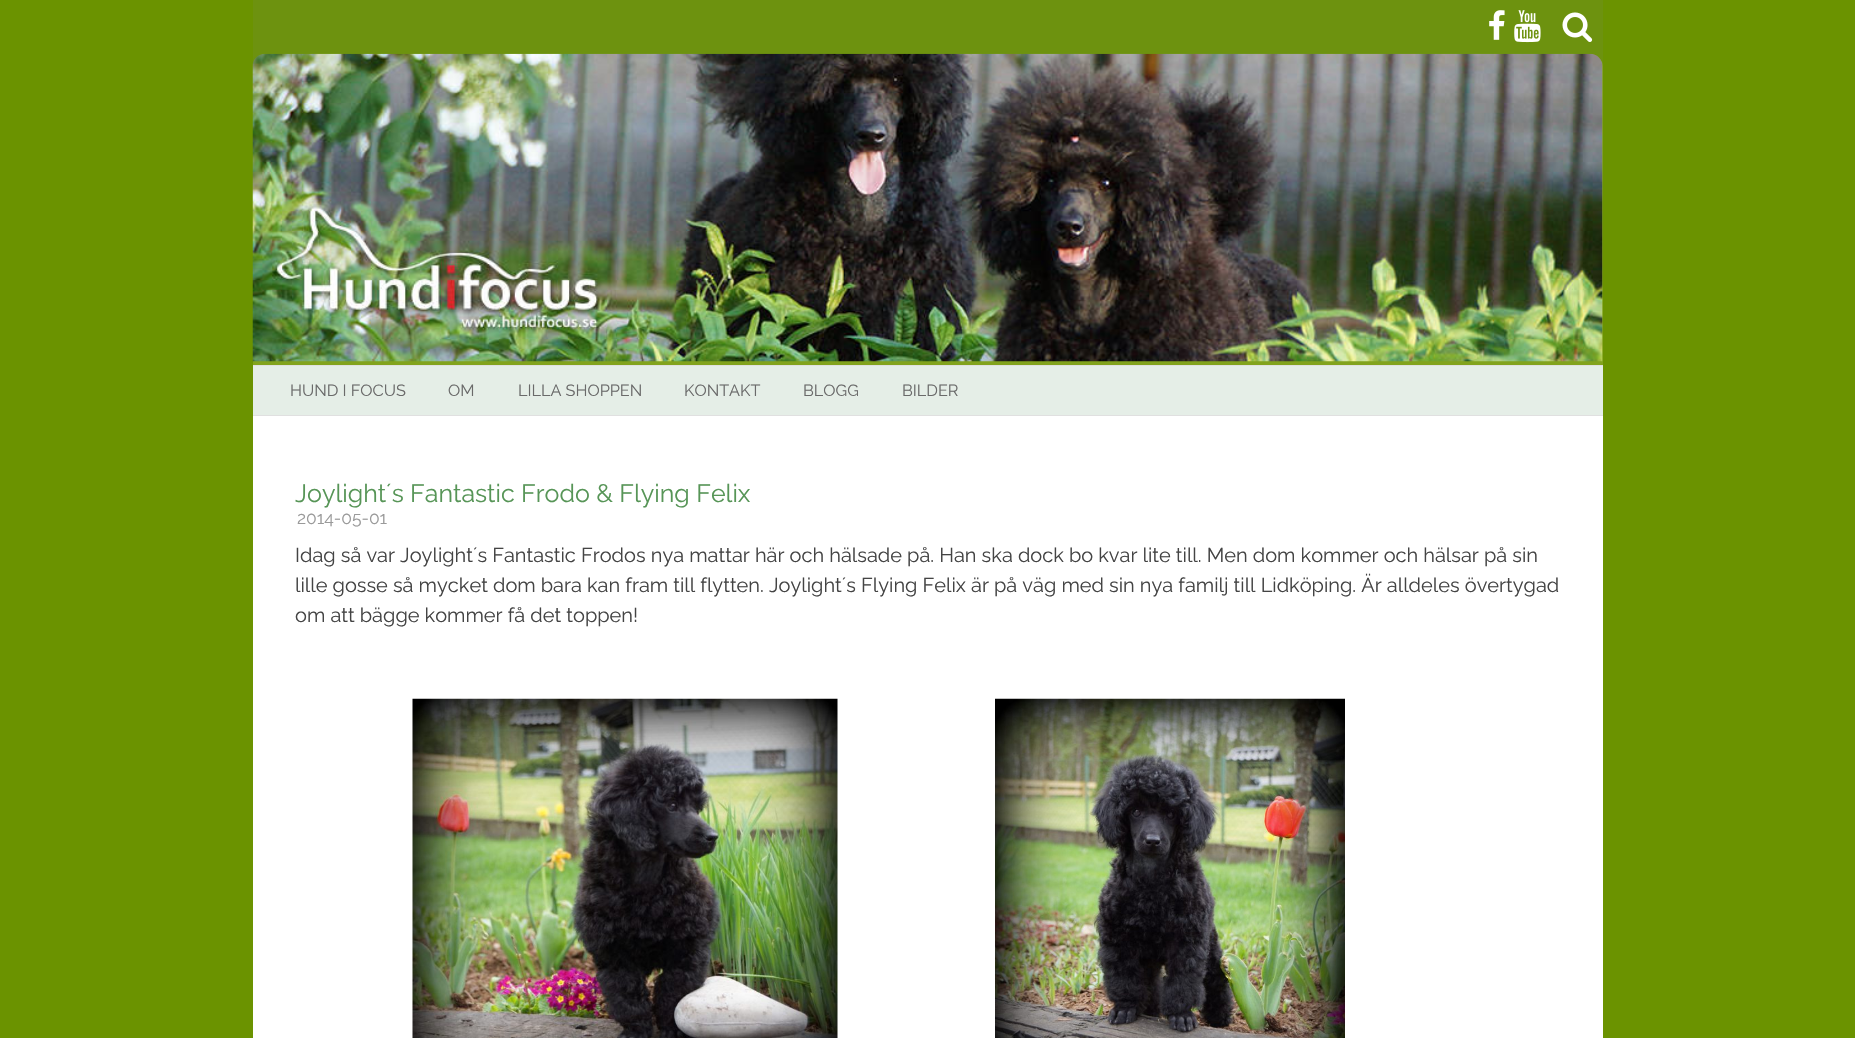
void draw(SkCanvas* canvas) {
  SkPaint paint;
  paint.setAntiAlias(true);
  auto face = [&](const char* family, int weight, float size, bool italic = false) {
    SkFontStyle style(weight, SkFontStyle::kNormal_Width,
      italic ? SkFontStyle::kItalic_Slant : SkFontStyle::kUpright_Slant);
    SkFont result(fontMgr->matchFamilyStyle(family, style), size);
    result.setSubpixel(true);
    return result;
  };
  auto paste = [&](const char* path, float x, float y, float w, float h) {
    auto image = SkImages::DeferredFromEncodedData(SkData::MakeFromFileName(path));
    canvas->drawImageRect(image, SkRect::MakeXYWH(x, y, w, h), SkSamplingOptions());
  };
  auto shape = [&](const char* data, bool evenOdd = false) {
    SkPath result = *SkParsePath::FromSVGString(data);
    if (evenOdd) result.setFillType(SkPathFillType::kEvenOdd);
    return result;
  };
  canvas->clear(0xff6b9300);
  paint.setColor(0xff6d920f);
  canvas->drawRect(SkRect::MakeXYWH(253, 0, 1350, 67), paint);
  paste("img/1.png", 1489, 10, 16, 30);
  paste("img/2.png", 1514, 10, 27, 33);
  paste("img/3.png", 1562, 12, 31, 30);
  paint.setColor(0xff82a31d);
  canvas->drawPath(shape("M266 54H1590C1597 54 1603 60 1603 67V365H253V67C253 60 259 54 266 54Z"), paint);
  paste("img/4.png", 252, 53, 1351, 309);
  {
    const struct { float x, y, w, h; SkColor color; } items[] = {
      {253, 366, 1350, 49, 0xffe5eee7},
      {253, 365, 1350, 1, 0xffe0e0e0},
      {253, 415, 1350, 1, 0xffe0e0e0},
      {253, 416, 1350, 622, 0xffffffff},
    };
    for (auto [x, y, w, h, color] : items) {
      paint.setColor(color);
      canvas->drawRect(SkRect::MakeXYWH(x, y, w, h), paint);
    }
  }
  paste("img/5.png", 412, 698, 426, 340);
  paste("img/6.png", 995, 698, 350, 340);
  auto f0 = face("Raleway", 400, 16.25f);
  paint.setColor(0xff6a6a6a);
  {
    const struct { const char* s; float x, y; } items[] = {
      {"HUND I FOCUS", 290, 396},
      {"OM", 448, 396},
      {"LILLA SHOPPEN", 518, 396},
      {"KONTAKT", 684, 396},
      {"BLOGG", 803, 396},
      {"BILDER", 902, 396},
    };
    for (auto [s, x, y] : items) {
      canvas->drawString(s, x, y, f0, paint);
    }
  }
  auto f1 = face("Raleway", 400, 25);
  paint.setColor(0xff579557);
  canvas->drawString("Joylight´s Fantastic Frodo & Flying Felix", 295, 502, f1, paint);
  auto f2 = face("Raleway", 400, 17.5f);
  paint.setColor(0xff9a9a9a);
  canvas->drawString("2014-05-01", 297, 524, f2, paint);
  auto f3 = face("Raleway", 400, 20);
  paint.setColor(0xff444444);
  {
    const struct { const char* s; float x, y; } items[] = {
      {"Idag så var Joylight´s Fantastic Frodos nya mattar här och hälsade på. Han ska dock bo kvar lite till. Men dom kommer och hälsar på sin", 295, 562},
      {"lille gosse så mycket dom bara kan fram till flytten. Joylight´s Flying Felix är på väg med sin nya familj till Lidköping. Är alldeles övertygad", 295, 592},
      {"om att bägge kommer få det toppen!", 295, 622},
    };
    for (auto [s, x, y] : items) {
      canvas->drawString(s, x, y, f3, paint);
    }
  }
}
